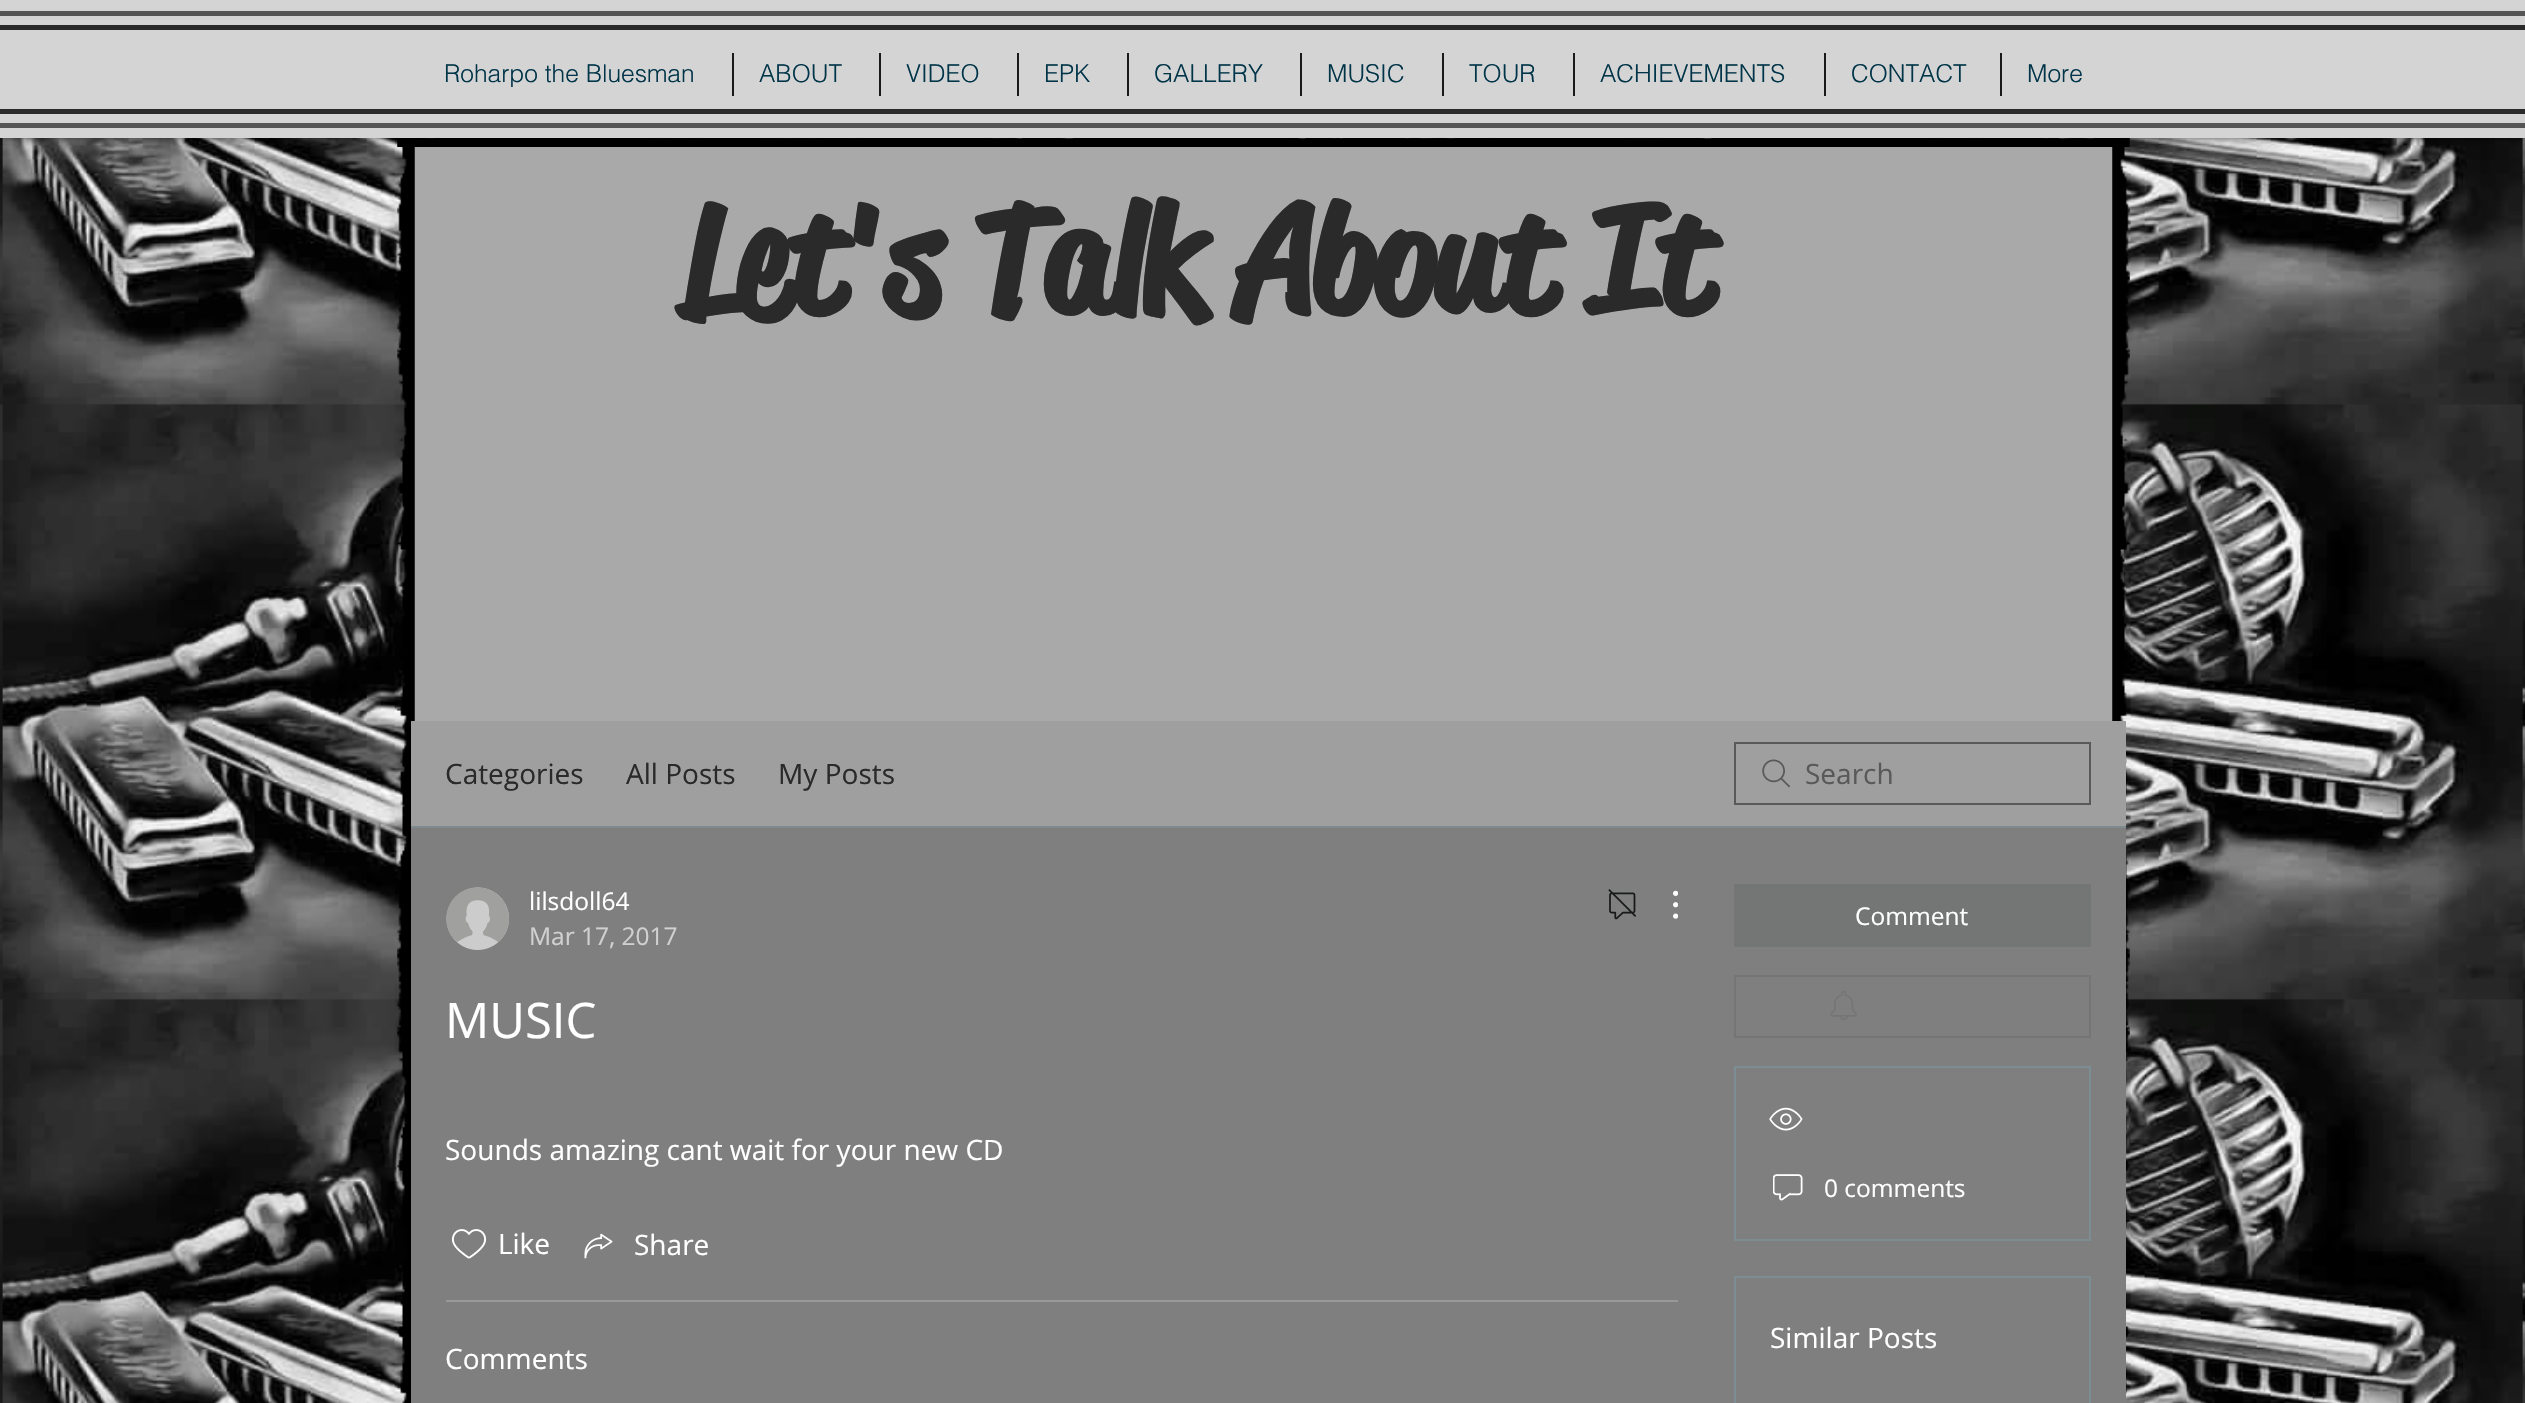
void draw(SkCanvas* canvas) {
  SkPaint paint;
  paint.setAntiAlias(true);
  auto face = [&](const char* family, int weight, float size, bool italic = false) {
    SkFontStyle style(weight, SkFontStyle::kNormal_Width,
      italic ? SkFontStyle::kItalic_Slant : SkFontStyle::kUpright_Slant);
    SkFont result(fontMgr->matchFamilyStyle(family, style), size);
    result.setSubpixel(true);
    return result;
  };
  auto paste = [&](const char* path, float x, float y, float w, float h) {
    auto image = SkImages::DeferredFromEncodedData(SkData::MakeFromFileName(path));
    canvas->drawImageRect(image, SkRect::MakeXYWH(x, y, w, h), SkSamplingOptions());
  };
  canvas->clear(0xffffffff);
  paste("img/13.png", 0, 138, 2525, 1265);
  paint.setColor(0xffa9a9a9);
  canvas->drawRect(SkRect::MakeXYWH(414, 147, 1699, 574), paint);
  paste("img/1.png", 397, 138, 1733, 9);
  paste("img/2.png", 397, 147, 18, 1256);
  paste("img/3.png", 2112, 147, 18, 1247);
  paint.setColor(0xb3000000);
  paint.setMaskFilter(SkMaskFilter::MakeBlur(kNormal_SkBlurStyle, 4.5f));
  canvas->drawRect(SkRect::MakeXYWH(0, 0, 2525, 138), paint);
  paint.setMaskFilter(nullptr);
  {
    const struct { float x, y, w, h; SkColor color; } items[] = {
      {0, 0, 2525, 138, 0xffd4d4d4},
      {0, 11, 2525, 5, 0xff545454},
      {0, 123, 2525, 5, 0xff545454},
      {0, 25, 2525, 5, 0xff2a2a2a},
      {0, 109, 2525, 5, 0xff2a2a2a},
      {732, 53, 2, 43, 0xff181919},
      {879, 53, 2, 43, 0xff181919},
      {1017, 53, 2, 43, 0xff181919},
      {1127, 53, 2, 43, 0xff181919},
      {1300, 53, 2, 43, 0xff181919},
      {1442, 53, 2, 43, 0xff181919},
      {1573, 53, 2, 43, 0xff181919},
      {1824, 53, 2, 43, 0xff181919},
      {2000, 53, 2, 43, 0xff181919},
      {411, 828, 1715, 575, 0xff7f7f7f},
      {411, 721, 1715, 105, 0xff9f9f9f},
      {411, 826, 1715, 2, 0xff7f8a8e},
    };
    for (auto [x, y, w, h, color] : items) {
      paint.setColor(color);
      canvas->drawRect(SkRect::MakeXYWH(x, y, w, h), paint);
    }
  }
  paste("img/4.png", 1762, 759, 29, 29);
  paint.setStroke(true);
  paint.setStrokeWidth(2);
  paint.setColor(0xff595959);
  canvas->drawRect(SkRect::MakeXYWH(1735, 743, 355, 61), paint);
  paste("img/5.png", 446, 887, 63, 63);
  paste("img/6.png", 1608, 889, 28, 31);
  paste("img/7.png", 1673, 890, 5, 29);
  paste("img/8.png", 451, 1229, 36, 30);
  paste("img/9.png", 584, 1233, 29, 26);
  paint.setStroke(false);
  paint.setColor(0xff999999);
  canvas->drawRect(SkRect::MakeXYWH(446, 1300, 1232, 2), paint);
  paint.setColor(0xff747575);
  canvas->drawRect(SkRect::MakeXYWH(1734, 884, 357, 63), paint);
  paint.setStroke(true);
  canvas->drawRect(SkRect::MakeXYWH(1735, 976, 355, 61), paint);
  paste("img/10.png", 1830, 990, 27, 30);
  paint.setColor(0xff7c8d93);
  canvas->drawRect(SkRect::MakeXYWH(1735, 1067, 355, 173), paint);
  paste("img/11.png", 1769, 1107, 34, 24);
  paste("img/12.png", 1773, 1174, 30, 27);
  canvas->drawRect(SkRect::MakeXYWH(1735, 1277, 355, 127), paint);
  auto f0 = face("helvetica", 300, 24.5f);
  paint.setStroke(false);
  paint.setColor(0xff003448);
  {
    const struct { const char* s; float x, y; } items[] = {
      {"Roharpo the Bluesman", 444, 82},
      {"ABOUT", 759, 82},
      {"VIDEO", 906, 82},
      {"EPK", 1044, 82},
      {"GALLERY", 1154, 82},
      {"MUSIC", 1327, 82},
      {"TOUR", 1469, 82},
      {"ACHIEVEMENTS", 1600, 82},
      {"CONTACT", 1851, 82},
      {"More", 2027, 82},
    };
    for (auto [s, x, y] : items) {
      canvas->drawString(s, x, y, f0, paint);
    }
  }
  auto f1 = face("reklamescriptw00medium", 700, 148.75f);
  paint.setColor(0xff2a2a2a);
  canvas->drawString("Let's Talk About It", 678, 312, f1, paint);
  auto f2 = face("Open Sans", 400, 28);
  {
    const struct { const char* s; float x, y; } items[] = {
      {"Categories", 445, 784},
      {"All Posts", 626, 784},
      {"My Posts", 778, 784},
    };
    for (auto [s, x, y] : items) {
      canvas->drawString(s, x, y, f2, paint);
    }
  }
  paint.setColor(0xff595959);
  canvas->drawString("Search", 1805, 784, f2, paint);
  auto f3 = face("Open Sans", 400, 24.5f);
  paint.setColor(0xffffffff);
  canvas->drawString("lilsdoll64", 529, 910, f3, paint);
  paint.setColor(0xffd1d1d1);
  canvas->drawString("Mar 17, 2017", 529, 945, f3, paint);
  auto f4 = face("Open Sans", 400, 49);
  paint.setColor(0xffffffff);
  canvas->drawString("MUSIC", 445, 1038, f4, paint);
  {
    const struct { const char* s; float x, y; } items[] = {
      {"Sounds amazing cant wait for your new CD", 445, 1160},
      {"Like", 498, 1254},
      {"Share", 634, 1255},
      {"Comments", 445, 1369},
    };
    for (auto [s, x, y] : items) {
      canvas->drawString(s, x, y, f2, paint);
    }
  }
  canvas->drawString("Comment", 1855, 925, f3, paint);
  canvas->drawString("0 comments", 1824, 1197, f3, paint);
  canvas->drawString("Similar Posts", 1770, 1348, f2, paint);
}
